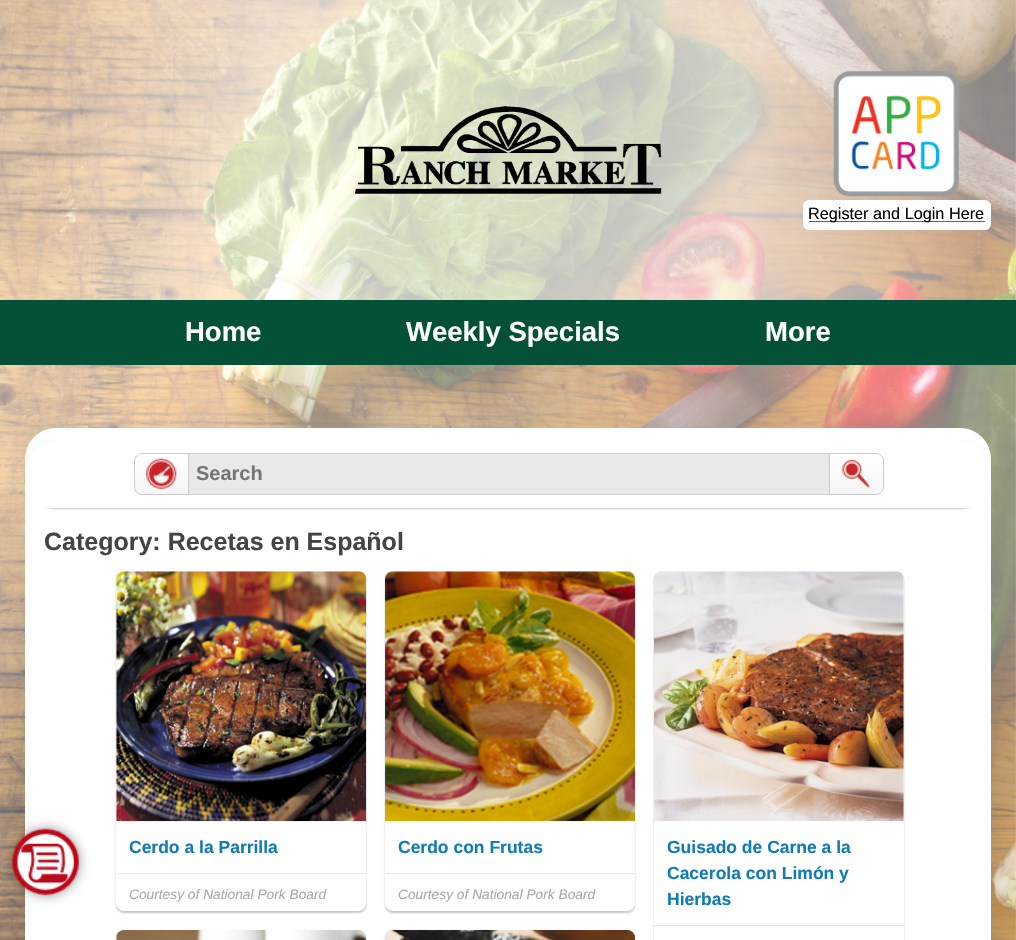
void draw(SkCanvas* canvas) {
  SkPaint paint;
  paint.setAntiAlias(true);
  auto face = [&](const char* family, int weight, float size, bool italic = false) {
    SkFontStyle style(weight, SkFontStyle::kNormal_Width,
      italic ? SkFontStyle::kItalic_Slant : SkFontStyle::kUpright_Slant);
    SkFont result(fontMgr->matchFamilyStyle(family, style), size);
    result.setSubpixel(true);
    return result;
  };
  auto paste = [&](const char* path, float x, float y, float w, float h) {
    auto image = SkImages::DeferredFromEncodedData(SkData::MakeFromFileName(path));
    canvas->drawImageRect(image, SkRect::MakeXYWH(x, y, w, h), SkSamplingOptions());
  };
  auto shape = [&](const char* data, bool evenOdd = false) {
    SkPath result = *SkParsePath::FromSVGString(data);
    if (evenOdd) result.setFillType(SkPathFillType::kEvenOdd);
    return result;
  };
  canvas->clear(0xffffffff);
  paste("img/1.png", 0, 0, 1016, 940);
  paint.setColor(0x80ffffff);
  canvas->drawRect(SkRect::MakeXYWH(0, 0, 1016, 300), paint);
  {
    const SkColor colors[] = {0x00ffffff, 0x80ffffff, 0x80ffffff, 0x00ffffff};
    const float stops[] = {0, 0.25f, 0.75f, 1};
    const SkPoint ends[] = {{25, 150}, {991, 150}};
    paint.setShader(SkGradientShader::MakeLinear(ends, colors, stops, 4, SkTileMode::kClamp));
    paint.setAlpha(255);
  }
  canvas->drawRect(SkRect::MakeXYWH(35, 0, 946, 300), paint);
  paste("img/2.png", 355, 106, 307, 88);
  paste("img/3.png", 833, 71, 126, 126);
  paint.setShader(nullptr);
  paint.setColor(0xffffffff);
  canvas->drawRoundRect(SkRect::MakeXYWH(803, 200, 188, 30), 6, 6, paint);
  paint.setColor(0xff117bb8);
  canvas->drawRect(SkRect::MakeXYWH(809, 221, 176, 1), paint);
  {
    const SkColor colors[] = {0x80ffffff, 0x80ffffff, 0x00ffffff};
    const float stops[] = {0, 0.13f, 0.63f};
    const SkPoint ends[] = {{508, 365}, {508, 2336}};
    paint.setShader(SkGradientShader::MakeLinear(ends, colors, stops, 3, SkTileMode::kClamp));
    paint.setAlpha(255);
  }
  canvas->drawRect(SkRect::MakeXYWH(0, 365, 1016, 575), paint);
  paint.setShader(nullptr);
  paint.setColor(0xbf000000);
  paint.setMaskFilter(SkMaskFilter::MakeBlur(kNormal_SkBlurStyle, 62.5f));
  canvas->drawRect(SkRect::MakeXYWH(88, 553, 841, 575), paint);
  paint.setMaskFilter(nullptr);
  paint.setColor(0xff045137);
  canvas->drawRect(SkRect::MakeXYWH(0, 300, 1016, 65), paint);
  paint.setColor(0xffffffff);
  canvas->drawRoundRect(SkRect::MakeXYWH(25, 428, 966, 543), 31, 31, paint);
  paint.setColor(0x38000000);
  paint.setMaskFilter(SkMaskFilter::MakeBlur(kNormal_SkBlurStyle, 1));
  canvas->drawRoundRect(SkRect::MakeXYWH(25, 441, 966, 68), 31, 31, paint);
  paint.setMaskFilter(nullptr);
  paint.setColor(0xffffffff);
  canvas->drawPath(shape("M56 440H960C977 440 991 454 991 471V508H25V471C25 454 39 440 56 440Z"), paint);
  canvas->save();
  canvas->clipPath(shape("M142 453H189V495H142C137.5 495 134 491.5 134 487V461C134 456.5 137.5 453 142 453Z"), true);
  {
    const SkColor colors[] = {0xffffffff, 0xfff5f5f5};
    const float stops[] = {0, 1};
    const SkPoint ends[] = {{161, 454}, {161, 494}};
    paint.setShader(SkGradientShader::MakeLinear(ends, colors, stops, 2, SkTileMode::kClamp));
    paint.setAlpha(255);
  }
  canvas->drawRect(SkRect::MakeXYWH(134, 454, 54, 40), paint);
  canvas->restore();
  paint.setStroke(true);
  paint.setStrokeWidth(1);
  paint.setShader(nullptr);
  paint.setColor(0xffcccccc);
  canvas->drawPath(shape("M142 453.5H188.5V494.5H142C138 494.5 134.5 491 134.5 487V461C134.5 457 138 453.5 142 453.5Z"), paint);
  paste("img/4.png", 146, 458, 31, 31);
  paint.setStroke(false);
  {
    const struct { float x, y, w, h; SkColor color; } items[] = {
      {189, 454, 640, 40, 0xffe9e9e9},
      {189, 453, 640, 1, 0xffd4d4d4},
      {189, 494, 640, 1, 0xffd4d4d4},
    };
    for (auto [x, y, w, h, color] : items) {
      paint.setColor(color);
      canvas->drawRect(SkRect::MakeXYWH(x, y, w, h), paint);
    }
  }
  canvas->save();
  canvas->clipPath(shape("M829 453H876C880.5 453 884 456.5 884 461V487C884 491.5 880.5 495 876 495H829Z"), true);
  {
    const SkColor colors[] = {0xffffffff, 0xfff5f5f5};
    const float stops[] = {0, 1};
    const SkPoint ends[] = {{856, 454}, {856, 494}};
    paint.setShader(SkGradientShader::MakeLinear(ends, colors, stops, 2, SkTileMode::kClamp));
    paint.setAlpha(255);
  }
  canvas->drawRect(SkRect::MakeXYWH(830, 454, 54, 40), paint);
  canvas->restore();
  paint.setStroke(true);
  paint.setShader(nullptr);
  paint.setColor(0xffcccccc);
  canvas->drawPath(shape("M829.5 453.5H876C880 453.5 883.5 457 883.5 461V487C883.5 491 880 494.5 876 494.5H829.5Z"), paint);
  paste("img/5.png", 842, 459, 29, 29);
  paint.setStroke(false);
  paint.setColor(0x38000000);
  paint.setMaskFilter(SkMaskFilter::MakeBlur(kNormal_SkBlurStyle, 1));
  canvas->drawRoundRect(SkRect::MakeXYWH(116, 573, 250, 340), 8, 8, paint);
  paint.setMaskFilter(nullptr);
  paint.setColor(0xffffffff);
  canvas->drawRoundRect(SkRect::MakeXYWH(116, 571, 250, 340), 8, 8, paint);
  paste("img/6.png", 116, 571, 251, 251);
  paint.setColor(0xffe7e7e7);
  canvas->drawRect(SkRect::MakeXYWH(116, 873, 250, 1), paint);
  paint.setColor(0x38000000);
  paint.setMaskFilter(SkMaskFilter::MakeBlur(kNormal_SkBlurStyle, 1));
  canvas->drawRoundRect(SkRect::MakeXYWH(385, 573, 250, 340), 8, 8, paint);
  paint.setMaskFilter(nullptr);
  paint.setColor(0xffffffff);
  canvas->drawRoundRect(SkRect::MakeXYWH(385, 571, 250, 340), 8, 8, paint);
  paste("img/7.png", 385, 571, 250, 251);
  paint.setColor(0xffe7e7e7);
  canvas->drawRect(SkRect::MakeXYWH(385, 873, 250, 1), paint);
  paint.setColor(0x38000000);
  paint.setMaskFilter(SkMaskFilter::MakeBlur(kNormal_SkBlurStyle, 1));
  canvas->drawRoundRect(SkRect::MakeXYWH(654, 573, 250, 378), 8, 8, paint);
  paint.setMaskFilter(nullptr);
  paint.setColor(0xffffffff);
  canvas->drawRoundRect(SkRect::MakeXYWH(654, 571, 250, 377), 8, 8, paint);
  paste("img/8.png", 653, 571, 251, 251);
  paint.setColor(0xffe7e7e7);
  canvas->drawRect(SkRect::MakeXYWH(654, 925, 250, 1), paint);
  paint.setColor(0x38000000);
  paint.setMaskFilter(SkMaskFilter::MakeBlur(kNormal_SkBlurStyle, 1));
  canvas->drawRoundRect(SkRect::MakeXYWH(116, 931, 250, 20), 8, 8, paint);
  paint.setMaskFilter(nullptr);
  paint.setColor(0xffffffff);
  canvas->drawRoundRect(SkRect::MakeXYWH(116, 930, 250, 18), 8, 8, paint);
  paste("img/9.png", 116, 930, 251, 10);
  paint.setColor(0x38000000);
  paint.setMaskFilter(SkMaskFilter::MakeBlur(kNormal_SkBlurStyle, 1));
  canvas->drawRoundRect(SkRect::MakeXYWH(385, 931, 250, 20), 8, 8, paint);
  paint.setMaskFilter(nullptr);
  paste("img/10.png", 385, 930, 250, 10);
  canvas->save();
  canvas->clipPath(shape("M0 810H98V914H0ZM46 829C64 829 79 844 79 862C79 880 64 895 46 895C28 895 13 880 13 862C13 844 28 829 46 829Z", true), true);
  paint.setColor(0x6b000000);
  paint.setMaskFilter(SkMaskFilter::MakeBlur(kNormal_SkBlurStyle, 6));
  canvas->drawRoundRect(SkRect::MakeXYWH(13, 829, 66, 66), 33, 33, paint);
  paint.setMaskFilter(nullptr);
  canvas->restore();
  paste("img/11.png", 12, 828, 67, 67);
  auto f0 = face("Liberation Sans", 400, 16.25f);
  paint.setColor(0xff000000);
  canvas->drawString("Register and Login Here", 808, 219, f0, paint);
  auto f1 = face("Liberation Sans", 700, 27.5f);
  paint.setColor(0xffffffff);
  {
    const struct { const char* s; float x, y; } items[] = {
      {"Home", 185, 341},
      {"Weekly Specials", 406, 341},
      {"More", 765, 341},
    };
    for (auto [s, x, y] : items) {
      canvas->drawString(s, x, y, f1, paint);
    }
  }
  auto f2 = face("Liberation Sans", 700, 20);
  paint.setColor(0xff757575);
  canvas->drawString("Search", 196, 480, f2, paint);
  auto f3 = face("Liberation Sans", 700, 25);
  paint.setColor(0xff444444);
  canvas->drawString("Category: Recetas en Español", 44, 550, f3, paint);
  auto f4 = face("Liberation Sans", 700, 17.5f);
  paint.setColor(0xff117bb8);
  canvas->drawString("Cerdo a la Parrilla", 129, 853, f4, paint);
  auto f5 = face("Liberation Sans", 400, 13.75f, true);
  paint.setColor(0xffaaaaaa);
  canvas->drawString("Courtesy of National Pork Board", 129, 899, f5, paint);
  paint.setColor(0xff117bb8);
  canvas->drawString("Cerdo con Frutas", 398, 853, f4, paint);
  paint.setColor(0xffaaaaaa);
  canvas->drawString("Courtesy of National Pork Board", 398, 899, f5, paint);
  paint.setColor(0xff117bb8);
  {
    const struct { const char* s; float x, y; } items[] = {
      {"Guisado de Carne a la", 667, 853},
      {"Cacerola con Limón y", 667, 879},
      {"Hierbas", 667, 905},
    };
    for (auto [s, x, y] : items) {
      canvas->drawString(s, x, y, f4, paint);
    }
  }
}
